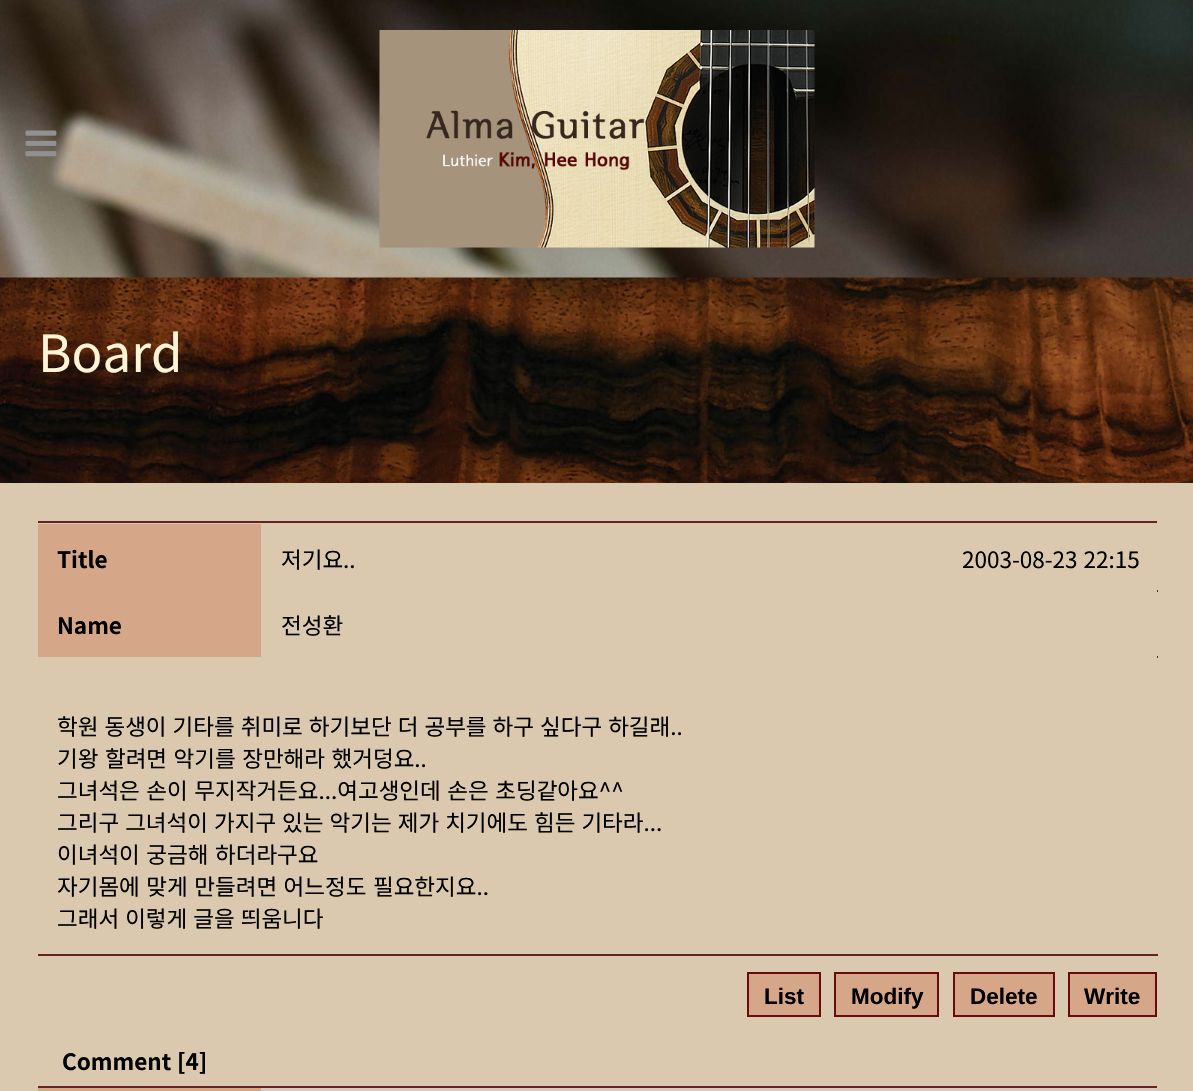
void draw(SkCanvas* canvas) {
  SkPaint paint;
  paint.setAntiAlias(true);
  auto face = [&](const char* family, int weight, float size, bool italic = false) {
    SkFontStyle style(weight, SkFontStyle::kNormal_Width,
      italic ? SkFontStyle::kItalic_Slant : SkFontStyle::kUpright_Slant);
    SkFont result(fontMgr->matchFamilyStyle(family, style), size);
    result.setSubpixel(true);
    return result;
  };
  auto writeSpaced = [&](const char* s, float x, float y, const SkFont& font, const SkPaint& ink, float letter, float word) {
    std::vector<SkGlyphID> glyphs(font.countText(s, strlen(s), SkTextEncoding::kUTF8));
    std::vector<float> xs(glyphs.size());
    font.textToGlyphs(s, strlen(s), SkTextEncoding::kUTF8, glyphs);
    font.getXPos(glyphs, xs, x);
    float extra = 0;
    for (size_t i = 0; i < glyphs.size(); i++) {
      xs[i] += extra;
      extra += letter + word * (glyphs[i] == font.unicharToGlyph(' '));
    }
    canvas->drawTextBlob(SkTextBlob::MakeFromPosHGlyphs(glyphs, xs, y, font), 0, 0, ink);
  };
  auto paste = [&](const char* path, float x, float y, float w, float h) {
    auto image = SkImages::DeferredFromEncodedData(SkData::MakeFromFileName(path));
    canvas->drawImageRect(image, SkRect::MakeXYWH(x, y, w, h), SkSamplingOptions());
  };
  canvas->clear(0xffffffff);
  paste("img/1.png", 0, 0, 1193, 278);
  paste("img/2.png", 25, 130, 32, 27);
  paste("img/3.png", 379, 30, 436, 218);
  paste("img/4.png", 0, 277, 1193, 206);
  {
    const struct { float x, y, w, h; SkColor color; } items[] = {
      {0, 483, 1193, 608, 0xffdac9ae},
      {38, 521, 1119, 2, 0xff652325},
      {38, 524, 223, 133, 0xffd6a689},
      {1157, 590, 1, 2, 0xff652325},
      {1157, 656, 1, 2, 0xff652325},
      {38, 954, 1120, 2, 0xff652325},
    };
    for (auto [x, y, w, h, color] : items) {
      paint.setColor(color);
      canvas->drawRect(SkRect::MakeXYWH(x, y, w, h), paint);
    }
  }
  paint.setColor(0xffd6a689);
  canvas->drawRect(SkRect::MakeXYWH(748, 973, 72, 43), paint);
  paint.setStroke(true);
  paint.setStrokeWidth(2);
  paint.setColor(0xff6b0a0c);
  canvas->drawRect(SkRect::MakeXYWH(748, 973, 72, 43), paint);
  paint.setStroke(false);
  paint.setColor(0xffd6a689);
  canvas->drawRect(SkRect::MakeXYWH(835, 973, 103, 43), paint);
  paint.setStroke(true);
  paint.setColor(0xff6b0a0c);
  canvas->drawRect(SkRect::MakeXYWH(835, 973, 103, 43), paint);
  paint.setStroke(false);
  paint.setColor(0xffd6a689);
  canvas->drawRect(SkRect::MakeXYWH(954, 973, 100, 43), paint);
  paint.setStroke(true);
  paint.setColor(0xff6b0a0c);
  canvas->drawRect(SkRect::MakeXYWH(954, 973, 100, 43), paint);
  paint.setStroke(false);
  paint.setColor(0xffd6a689);
  canvas->drawRect(SkRect::MakeXYWH(1069, 973, 87, 43), paint);
  paint.setStroke(true);
  paint.setColor(0xff6b0a0c);
  canvas->drawRect(SkRect::MakeXYWH(1069, 973, 87, 43), paint);
  paint.setStroke(false);
  {
    const struct { float x, y, w, h; SkColor color; } items[] = {
      {38, 1086, 1119, 2, 0xff652325},
      {38, 1088, 223, 3, 0xffd6a689},
      {261, 1088, 896, 3, 0xffd6cbbe},
    };
    for (auto [x, y, w, h, color] : items) {
      paint.setColor(color);
      canvas->drawRect(SkRect::MakeXYWH(x, y, w, h), paint);
    }
  }
  auto f0 = face("Noto Sans KR", 400, 51);
  paint.setColor(0xfffff4d6);
  canvas->drawString("Board", 38, 372, f0, paint);
  auto f1 = face("Noto Sans KR", 700, 22.5f);
  paint.setColor(0xff000000);
  canvas->drawString("Title", 57, 568, f1, paint);
  auto f2 = face("Noto Sans KR", 400, 22.5f);
  canvas->drawString("저기요..", 281, 568, f2, paint);
  writeSpaced("2003-08-23 22:15", 962, 568, f2, paint, 0, 1);
  canvas->drawString("Name", 57, 634, f1, paint);
  canvas->drawString("전성환", 281, 634, f2, paint);
  writeSpaced("학원 동생이 기타를 취미로 하기보단 더 공부를 하구 싶다구 하길래..", 57, 735, f2, paint, 0, 1);
  writeSpaced("기왕 할려면 악기를 장만해라 했거덩요..", 57, 767, f2, paint, 0, 1.5f);
  writeSpaced("그녀석은 손이 무지작거든요...여고생인데 손은 초딩같아요^^", 57, 799, f2, paint, 0, 1.5f);
  writeSpaced("그리구 그녀석이 가지구 있는 악기는 제가 치기에도 힘든 기타라...", 57, 831, f2, paint, 0, 1);
  writeSpaced("이녀석이 궁금해 하더라구요", 57, 863, f2, paint, 0, 1.5f);
  writeSpaced("자기몸에 맞게 만들려면 어느정도 필요한지요..", 57, 895, f2, paint, 0, 1.5f);
  writeSpaced("그래서 이렇게 글을 띄움니다", 57, 927, f2, paint, 0, 1);
  auto f3 = face("Liberation Sans", 700, 22.5f);
  {
    const struct { const char* s; float x, y; } items[] = {
      {"List", 764, 1004},
      {"Modify", 851, 1004},
      {"Delete", 970, 1004},
      {"Write", 1084, 1004},
    };
    for (auto [s, x, y] : items) {
      canvas->drawString(s, x, y, f3, paint);
    }
  }
  canvas->drawString("Comment", 62, 1070, f1, paint);
  canvas->drawString("[4]", 177, 1070, f1, paint);
}
